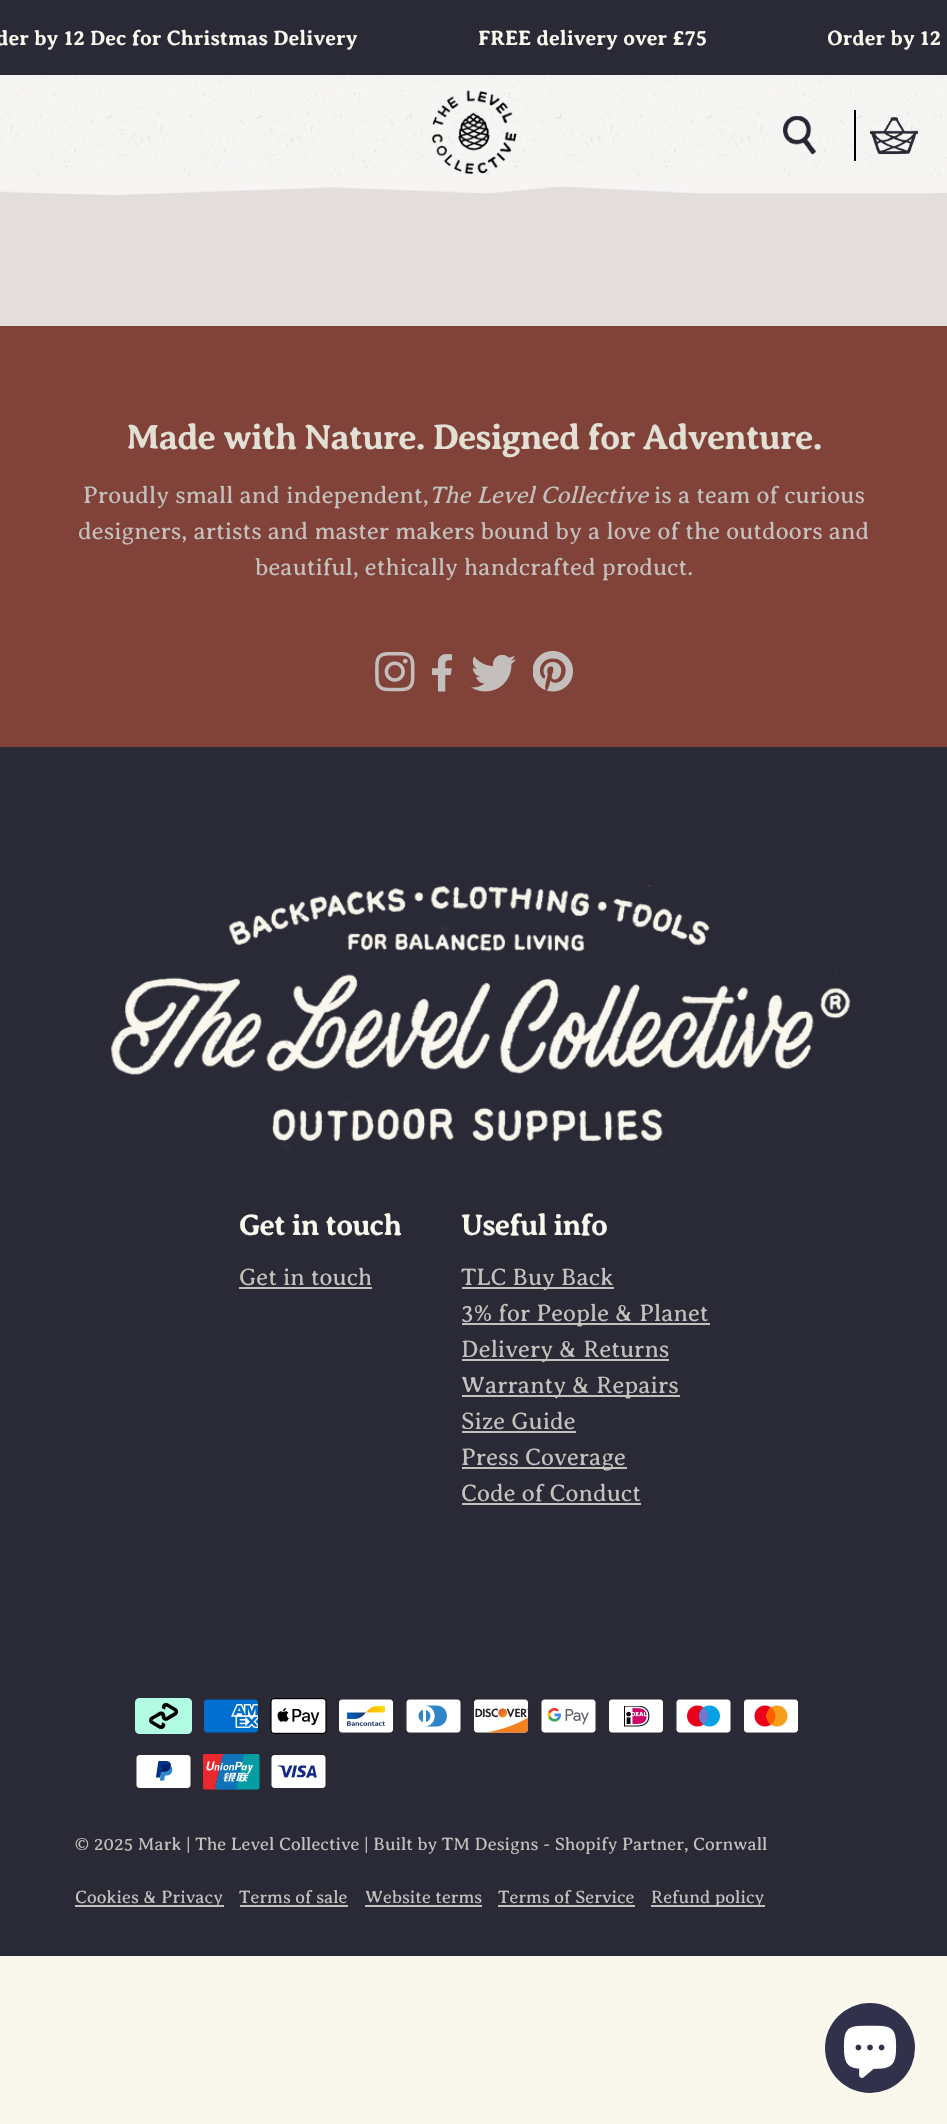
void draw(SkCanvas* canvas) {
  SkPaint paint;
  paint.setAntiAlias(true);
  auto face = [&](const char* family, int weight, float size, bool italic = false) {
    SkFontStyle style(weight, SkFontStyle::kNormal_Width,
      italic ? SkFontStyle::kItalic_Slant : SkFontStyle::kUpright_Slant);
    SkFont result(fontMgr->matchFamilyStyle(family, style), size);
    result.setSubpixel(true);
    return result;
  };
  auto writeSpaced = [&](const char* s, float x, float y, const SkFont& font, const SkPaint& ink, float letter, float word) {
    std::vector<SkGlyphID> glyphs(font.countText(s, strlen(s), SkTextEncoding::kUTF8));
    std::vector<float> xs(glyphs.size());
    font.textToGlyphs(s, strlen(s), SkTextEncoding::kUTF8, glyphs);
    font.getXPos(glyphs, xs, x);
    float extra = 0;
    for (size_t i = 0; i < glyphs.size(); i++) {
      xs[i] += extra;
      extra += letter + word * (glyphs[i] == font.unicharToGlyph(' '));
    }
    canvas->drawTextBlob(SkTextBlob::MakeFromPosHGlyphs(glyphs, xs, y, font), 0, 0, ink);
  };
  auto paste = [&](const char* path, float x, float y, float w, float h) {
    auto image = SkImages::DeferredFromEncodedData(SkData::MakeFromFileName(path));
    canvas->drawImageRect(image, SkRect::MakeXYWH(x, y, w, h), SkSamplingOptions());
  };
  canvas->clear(0xfffaf7ed);
  paint.setColor(0xff2a2a36);
  canvas->drawRect(SkRect::MakeXYWH(0, 0, 947, 75), paint);
  paint.setColor(0xfff8f4f1);
  canvas->drawRect(SkRect::MakeXYWH(0, 181, 947, 1), paint);
  paste("img/1.png", 0, 75, 947, 106);
  paste("img/2.png", 432, 90, 85, 84);
  paste("img/3.png", 783, 116, 33, 39);
  paint.setColor(0xff000000);
  canvas->drawRect(SkRect::MakeXYWH(854, 110, 2, 51), paint);
  paste("img/4.png", 870, 117, 48, 38);
  paint.setColor(0xffe3dedb);
  canvas->drawRect(SkRect::MakeXYWH(0, 186, 947, 140), paint);
  paste("img/5.png", 0, 182, 947, 13);
  paint.setColor(0xff814239);
  canvas->drawRect(SkRect::MakeXYWH(0, 326, 947, 421), paint);
  paste("img/6.png", 375, 651, 40, 41);
  paste("img/7.png", 432, 654, 21, 38);
  paste("img/8.png", 471, 654, 45, 38);
  paste("img/9.png", 533, 651, 40, 41);
  paint.setColor(0xff2a2a36);
  canvas->drawRect(SkRect::MakeXYWH(0, 747, 947, 1209), paint);
  paste("img/10.png", 110, 885, 741, 272);
  {
    const struct { float x, y, w, h; SkColor color; } items[] = {
      {239, 1287, 133, 2, 0xffc3c0bd},
      {462, 1287, 152, 2, 0xffc3c0bd},
      {462, 1323, 248, 2, 0xffc3c0bd},
      {462, 1359, 207, 2, 0xffc3c0bd},
      {462, 1395, 218, 2, 0xffc3c0bd},
      {462, 1431, 114, 2, 0xffc3c0bd},
      {462, 1467, 165, 2, 0xffc3c0bd},
      {462, 1503, 179, 2, 0xffc3c0bd},
    };
    for (auto [x, y, w, h, color] : items) {
      paint.setColor(color);
      canvas->drawRect(SkRect::MakeXYWH(x, y, w, h), paint);
    }
  }
  paste("img/11.png", 135, 1698, 57, 36);
  paste("img/12.png", 204, 1699, 54, 34);
  paste("img/13.png", 270, 1698, 57, 36);
  paste("img/14.png", 339, 1699, 54, 34);
  paste("img/15.png", 406, 1699, 55, 34);
  paste("img/16.png", 474, 1699, 55, 34);
  paste("img/17.png", 541, 1699, 55, 34);
  paste("img/18.png", 609, 1699, 54, 34);
  paste("img/19.png", 676, 1699, 55, 34);
  paste("img/20.png", 744, 1699, 54, 34);
  paste("img/21.png", 136, 1755, 55, 33);
  paste("img/22.png", 203, 1754, 57, 36);
  paste("img/23.png", 271, 1755, 55, 33);
  {
    const struct { float x, y, w, h; SkColor color; } items[] = {
      {75, 1905, 149, 2, 0xffc3c0bd},
      {240, 1905, 108, 2, 0xffc3c0bd},
      {365, 1905, 117, 2, 0xffc3c0bd},
      {498, 1905, 137, 2, 0xffc3c0bd},
      {651, 1905, 114, 2, 0xffc3c0bd},
    };
    for (auto [x, y, w, h, color] : items) {
      paint.setColor(color);
      canvas->drawRect(SkRect::MakeXYWH(x, y, w, h), paint);
    }
  }
  paint.setColor(0xff31314b);
  canvas->drawCircle(870, 2048, 45, paint);
  paste("img/24.png", 843, 2025, 54, 53);
  auto f0 = face("Averia Serif Libre", 700, 21);
  paint.setColor(0xfffaf7ee);
  {
    const struct { const char* s; float x, y; } items[] = {
      {"der by 12 Dec for Christmas Delivery", -4, 45},
      {"FREE delivery over £75", 478, 45},
      {"Order by 12", 827, 45},
    };
    for (auto [s, x, y] : items) {
      canvas->drawString(s, x, y, f0, paint);
    }
  }
  auto f1 = face("Averia Serif Libre", 700, 36);
  paint.setColor(0xffe2dfd5);
  writeSpaced("Made with Nature. Designed for Adventure.", 126, 449, f1, paint, -1.1f, 0);
  auto f2 = face("Averia Serif Libre", 300, 24);
  paint.setColor(0xffc3c0bd);
  canvas->drawString("Proudly small and independent,", 83, 503, f2, paint);
  auto f3 = face("Averia Serif Libre", 300, 24, true);
  canvas->drawString("The Level Collective", 429, 503, f3, paint);
  {
    const struct { const char* s; float x, y; } items[] = {
      {"is a team of curious", 654, 503},
      {"designers, artists and master makers bound by a love of the outdoors and", 78, 539},
      {"beautiful, ethically handcrafted product.", 255, 575},
    };
    for (auto [s, x, y] : items) {
      canvas->drawString(s, x, y, f2, paint);
    }
  }
  auto f4 = face("Averia Serif Libre", 700, 30);
  paint.setColor(0xfffaf7ee);
  writeSpaced("Get in touch", 239, 1235, f4, paint, -0.9f, 0);
  paint.setColor(0xffc3c0bd);
  canvas->drawString("Get in touch", 239, 1285, f2, paint);
  paint.setColor(0xfffaf7ee);
  writeSpaced("Useful info", 461, 1235, f4, paint, -0.9f, 0);
  paint.setColor(0xffc3c0bd);
  {
    const struct { const char* s; float x, y; } items[] = {
      {"TLC Buy Back", 461, 1285},
      {"3% for People & Planet", 461, 1321},
      {"Delivery & Returns", 461, 1357},
      {"Warranty & Repairs", 461, 1393},
      {"Size Guide", 461, 1429},
      {"Press Coverage", 461, 1465},
      {"Code of Conduct", 461, 1501},
    };
    for (auto [s, x, y] : items) {
      canvas->drawString(s, x, y, f2, paint);
    }
  }
  auto f5 = face("Averia Serif Libre", 300, 18);
  {
    const struct { const char* s; float x, y; } items[] = {
      {"© 2025 Mark | The Level Collective | Built by TM Designs - Shopify Partner, Cornwall", 75, 1850},
      {"Cookies & Privacy", 75, 1903},
      {"Terms of sale", 239, 1903},
      {"Website terms", 365, 1903},
      {"Terms of Service", 498, 1903},
      {"Refund policy", 651, 1903},
    };
    for (auto [s, x, y] : items) {
      canvas->drawString(s, x, y, f5, paint);
    }
  }
}
